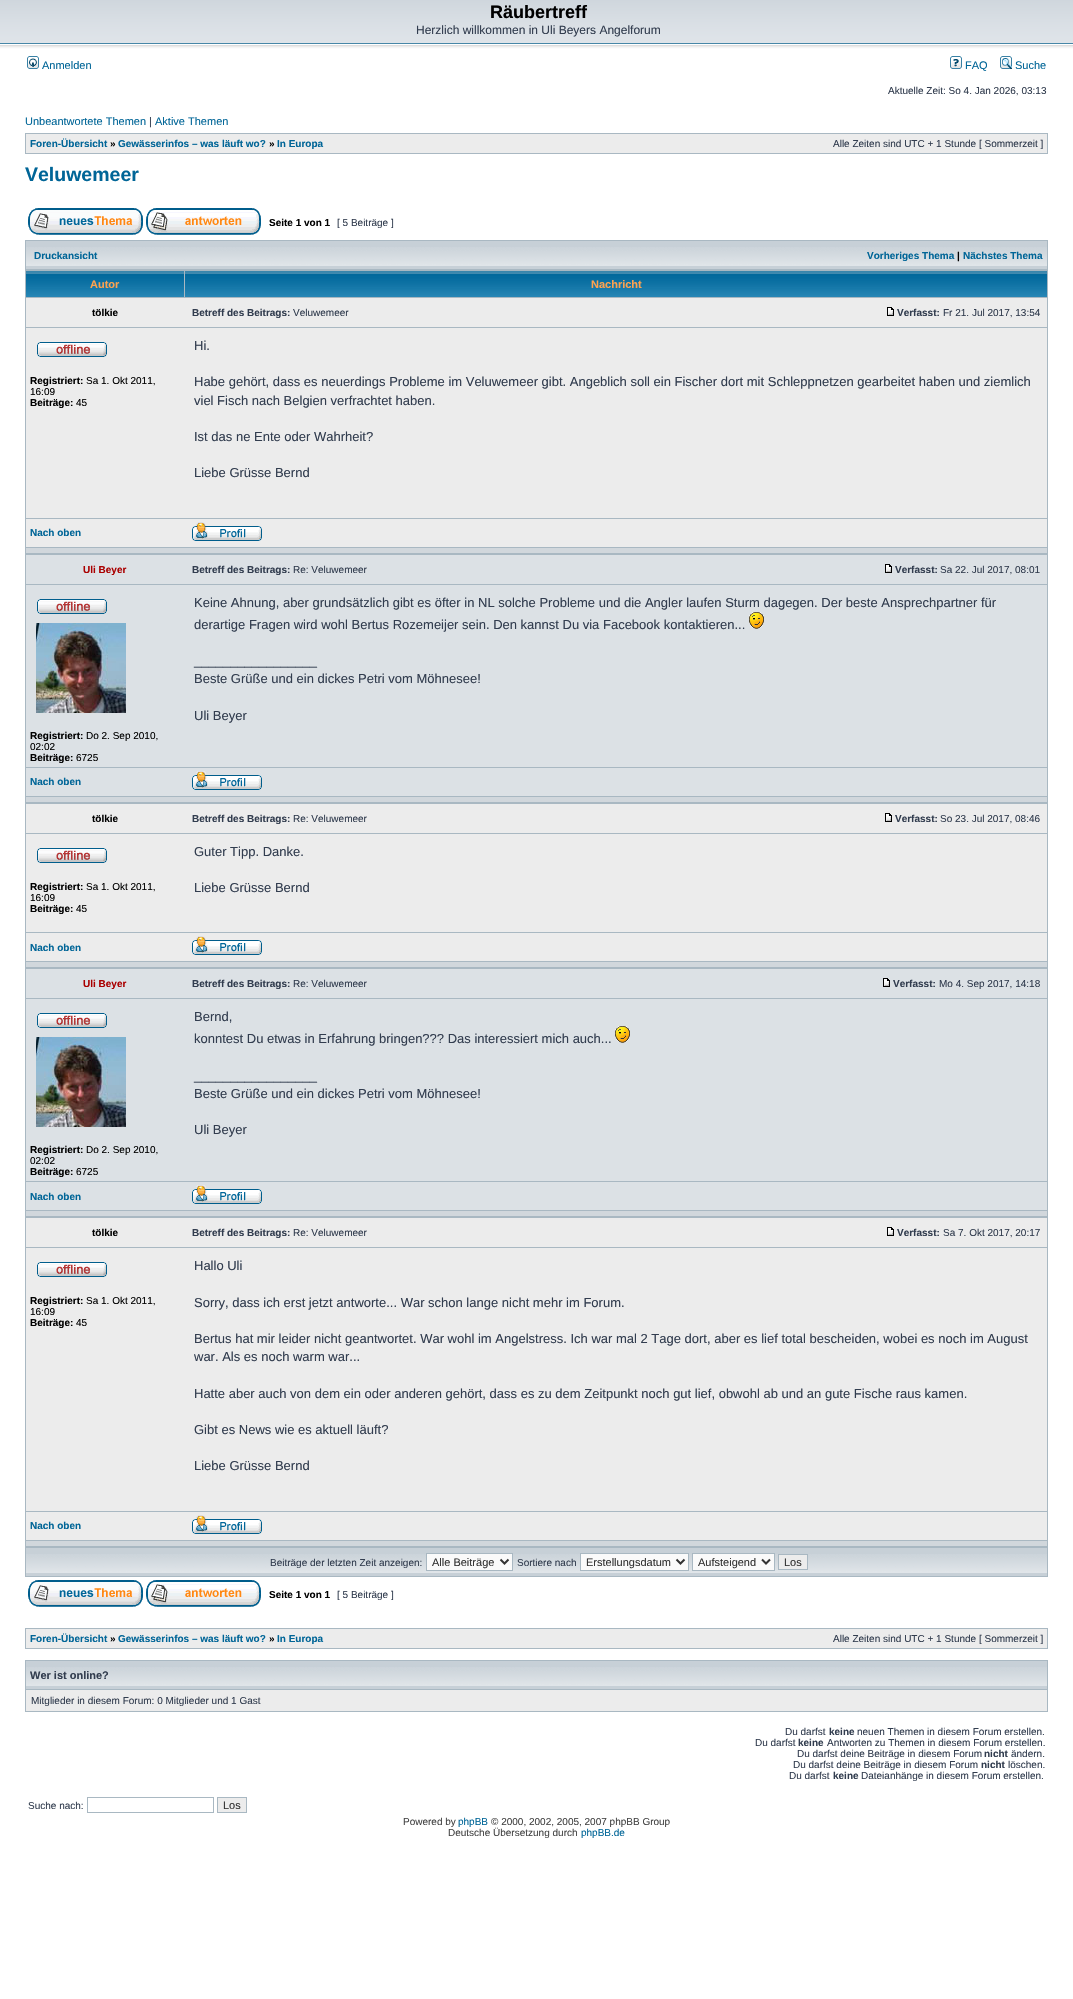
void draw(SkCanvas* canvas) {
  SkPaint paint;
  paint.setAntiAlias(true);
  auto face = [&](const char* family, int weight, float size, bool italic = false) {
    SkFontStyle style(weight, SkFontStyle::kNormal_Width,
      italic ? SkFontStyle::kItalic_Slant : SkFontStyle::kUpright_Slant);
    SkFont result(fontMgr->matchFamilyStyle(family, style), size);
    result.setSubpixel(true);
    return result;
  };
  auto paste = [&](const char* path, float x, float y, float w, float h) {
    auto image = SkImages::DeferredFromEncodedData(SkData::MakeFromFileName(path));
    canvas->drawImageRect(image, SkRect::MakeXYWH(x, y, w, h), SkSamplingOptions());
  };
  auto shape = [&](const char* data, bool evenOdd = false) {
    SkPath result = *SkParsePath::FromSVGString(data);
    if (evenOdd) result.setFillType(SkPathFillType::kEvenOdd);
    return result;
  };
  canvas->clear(0xffffffff);
  paste("img/1.png", 0, 0, 1073, 54);
  paste("img/2.png", 27, 56, 12, 13);
  paste("img/3.png", 950, 56, 12, 13);
  paste("img/4.png", 1000, 56, 12, 13);
  paint.setColor(0xffa9b8c2);
  canvas->drawRect(SkRect::MakeXYWH(25, 133, 1023, 21), paint);
  paint.setColor(0xffececec);
  canvas->drawRect(SkRect::MakeXYWH(26, 134, 1021, 19), paint);
  paste("img/5.png", 28, 208, 115, 27);
  paste("img/6.png", 146, 208, 115, 27);
  paint.setColor(0xffa9b8c2);
  canvas->drawRect(SkRect::MakeXYWH(25, 240, 1023, 1337), paint);
  paint.setColor(0xffc7d0d7);
  canvas->drawRect(SkRect::MakeXYWH(26, 241, 1021, 28), paint);
  paste("img/7.png", 26, 247, 1021, 19);
  paste("img/8.png", 26, 271, 158, 26);
  paste("img/9.png", 185, 271, 862, 26);
  paint.setColor(0xffececec);
  canvas->drawRect(SkRect::MakeXYWH(26, 298, 1021, 29), paint);
  paste("img/10.png", 887, 307, 7, 9);
  canvas->drawRect(SkRect::MakeXYWH(26, 328, 1021, 190), paint);
  paste("img/11.png", 37, 342, 70, 15);
  canvas->drawRect(SkRect::MakeXYWH(26, 519, 1021, 28), paint);
  paste("img/12.png", 192, 522, 70, 19);
  paint.setColor(0xffd1d7dc);
  canvas->drawRect(SkRect::MakeXYWH(26, 548, 1021, 5), paint);
  paint.setColor(0xffdce1e5);
  canvas->drawRect(SkRect::MakeXYWH(26, 555, 1021, 29), paint);
  paste("img/13.png", 885, 564, 7, 9);
  canvas->drawRect(SkRect::MakeXYWH(26, 585, 1021, 182), paint);
  paste("img/14.png", 749, 612, 15, 17);
  paste("img/15.png", 37, 599, 70, 15);
  paste("img/16.png", 36, 623, 90, 90);
  canvas->drawRect(SkRect::MakeXYWH(26, 768, 1021, 28), paint);
  paste("img/17.png", 192, 771, 70, 19);
  paint.setColor(0xffd1d7dc);
  canvas->drawRect(SkRect::MakeXYWH(26, 797, 1021, 5), paint);
  paint.setColor(0xffececec);
  canvas->drawRect(SkRect::MakeXYWH(26, 804, 1021, 29), paint);
  paste("img/10.png", 885, 813, 7, 9);
  canvas->drawRect(SkRect::MakeXYWH(26, 834, 1021, 98), paint);
  paste("img/11.png", 37, 848, 70, 15);
  canvas->drawRect(SkRect::MakeXYWH(26, 933, 1021, 28), paint);
  paste("img/12.png", 192, 936, 70, 19);
  paint.setColor(0xffd1d7dc);
  canvas->drawRect(SkRect::MakeXYWH(26, 962, 1021, 5), paint);
  paint.setColor(0xffdce1e5);
  canvas->drawRect(SkRect::MakeXYWH(26, 969, 1021, 29), paint);
  paste("img/13.png", 883, 978, 7, 9);
  canvas->drawRect(SkRect::MakeXYWH(26, 999, 1021, 182), paint);
  paste("img/14.png", 615, 1026, 15, 17);
  paste("img/15.png", 37, 1013, 70, 15);
  paste("img/16.png", 36, 1037, 90, 90);
  canvas->drawRect(SkRect::MakeXYWH(26, 1182, 1021, 28), paint);
  paste("img/17.png", 192, 1185, 70, 19);
  paint.setColor(0xffd1d7dc);
  canvas->drawRect(SkRect::MakeXYWH(26, 1211, 1021, 5), paint);
  paint.setColor(0xffececec);
  canvas->drawRect(SkRect::MakeXYWH(26, 1218, 1021, 29), paint);
  paste("img/10.png", 887, 1227, 7, 9);
  canvas->drawRect(SkRect::MakeXYWH(26, 1248, 1021, 263), paint);
  paste("img/11.png", 37, 1262, 70, 15);
  canvas->drawRect(SkRect::MakeXYWH(26, 1512, 1021, 28), paint);
  paste("img/12.png", 192, 1515, 70, 19);
  paint.setColor(0xffd1d7dc);
  canvas->drawRect(SkRect::MakeXYWH(26, 1541, 1021, 5), paint);
  paint.setColor(0xffc7d0d7);
  canvas->drawRect(SkRect::MakeXYWH(26, 1548, 1021, 28), paint);
  paste("img/7.png", 26, 1554, 1021, 19);
  paint.setColor(0xfffafafa);
  canvas->drawRect(SkRect::MakeXYWH(426.5f, 1553.5f, 86, 17), paint);
  paint.setStroke(true);
  paint.setStrokeWidth(1);
  paint.setColor(0xffa9b8c2);
  canvas->drawRect(SkRect::MakeXYWH(426.5f, 1553.5f, 86, 17), paint);
  paint.setStrokeWidth(2);
  paint.setColor(0xff333333);
  canvas->drawPath(shape("M500.5 1559.5L504.5 1563.5L508.5 1559.5"), paint);
  paint.setStroke(false);
  paint.setColor(0xfffafafa);
  canvas->drawRect(SkRect::MakeXYWH(580.5f, 1553.5f, 108, 17), paint);
  paint.setStroke(true);
  paint.setStrokeWidth(1);
  paint.setColor(0xffa9b8c2);
  canvas->drawRect(SkRect::MakeXYWH(580.5f, 1553.5f, 108, 17), paint);
  paint.setStrokeWidth(2);
  paint.setColor(0xff333333);
  canvas->drawPath(shape("M676.5 1559.5L680.5 1563.5L684.5 1559.5"), paint);
  paint.setStroke(false);
  paint.setColor(0xfffafafa);
  canvas->drawRect(SkRect::MakeXYWH(692.5f, 1553.5f, 82, 17), paint);
  paint.setStroke(true);
  paint.setStrokeWidth(1);
  paint.setColor(0xffa9b8c2);
  canvas->drawRect(SkRect::MakeXYWH(692.5f, 1553.5f, 82, 17), paint);
  paint.setStrokeWidth(2);
  paint.setColor(0xff333333);
  canvas->drawPath(shape("M762 1559.5L766 1563.5L770 1559.5"), paint);
  paint.setStroke(false);
  paint.setColor(0xffececec);
  canvas->drawRect(SkRect::MakeXYWH(778.5f, 1554.5f, 29, 15), paint);
  paint.setStroke(true);
  paint.setStrokeWidth(1);
  paint.setColor(0xffa9b8c2);
  canvas->drawRect(SkRect::MakeXYWH(778.5f, 1554.5f, 29, 15), paint);
  paste("img/5.png", 28, 1580, 115, 27);
  paste("img/6.png", 146, 1580, 115, 27);
  paint.setStroke(false);
  {
    const struct { float x, y, w, h; SkColor color; } items[] = {
      {25, 1628, 1023, 21, 0xffa9b8c2},
      {26, 1629, 1021, 19, 0xffececec},
      {25, 1660, 1023, 52, 0xffa9b8c2},
      {26, 1661, 1021, 28, 0xffc7d0d7},
    };
    for (auto [x, y, w, h, color] : items) {
      paint.setColor(color);
      canvas->drawRect(SkRect::MakeXYWH(x, y, w, h), paint);
    }
  }
  paste("img/7.png", 26, 1667, 1021, 19);
  paint.setColor(0xffececec);
  canvas->drawRect(SkRect::MakeXYWH(26, 1690, 1021, 21), paint);
  paint.setStroke(true);
  paint.setColor(0xffa9b8c2);
  canvas->drawRect(SkRect::MakeXYWH(87.5f, 1797.5f, 126, 15), paint);
  paint.setStroke(false);
  paint.setColor(0xffececec);
  canvas->drawRect(SkRect::MakeXYWH(217.5f, 1797.5f, 29, 15), paint);
  paint.setStroke(true);
  paint.setColor(0xffa9b8c2);
  canvas->drawRect(SkRect::MakeXYWH(217.5f, 1797.5f, 29, 15), paint);
  auto f0 = face("Liberation Sans", 700, 18);
  paint.setStroke(false);
  paint.setColor(0xff000000);
  canvas->drawString("Räubertreff", 490, 18, f0, paint);
  auto f1 = face("Liberation Sans", 400, 12);
  paint.setColor(0xff323d4f);
  canvas->drawString("Herzlich willkommen in Uli Beyers Angelforum", 416, 34, f1, paint);
  auto f2 = face("Liberation Sans", 400, 11);
  paint.setColor(0xff006597);
  {
    const struct { const char* s; float x, y; } items[] = {
      {"Anmelden", 42, 69},
      {"FAQ", 965, 69},
      {"Suche", 1015, 69},
    };
    for (auto [s, x, y] : items) {
      canvas->drawString(s, x, y, f2, paint);
    }
  }
  auto f3 = face("Liberation Sans", 400, 10);
  paint.setColor(0xff323d4f);
  canvas->drawString("Aktuelle Zeit: So 4. Jan 2026, 03:13", 888, 94, f3, paint);
  paint.setColor(0xff006597);
  canvas->drawString("Unbeantwortete Themen", 25, 125, f2, paint);
  paint.setColor(0xff323d4f);
  canvas->drawString("|", 149, 125, f2, paint);
  paint.setColor(0xff006597);
  canvas->drawString("Aktive Themen", 155, 125, f2, paint);
  auto f4 = face("Liberation Sans", 700, 10);
  canvas->drawString("Foren-Übersicht", 30, 147, f4, paint);
  paint.setColor(0xff000000);
  canvas->drawString("»", 110, 147, f4, paint);
  paint.setColor(0xff006597);
  canvas->drawString("Gewässerinfos – was läuft wo?", 118, 147, f4, paint);
  paint.setColor(0xff000000);
  canvas->drawString("»", 269, 147, f4, paint);
  paint.setColor(0xff006597);
  canvas->drawString("In Europa", 277, 147, f4, paint);
  paint.setColor(0xff323d4f);
  canvas->drawString("Alle Zeiten sind UTC + 1 Stunde [ Sommerzeit ]", 833, 147, f3, paint);
  auto f5 = face("Liberation Sans", 700, 19.5f);
  paint.setColor(0xff006597);
  canvas->drawString("Veluwemeer", 25, 181, f5, paint);
  paint.setColor(0xff000000);
  canvas->drawString("Seite 1 von 1", 269, 226, f4, paint);
  paint.setColor(0xff323d4f);
  canvas->drawString("[ 5 Beiträge ]", 337, 226, f3, paint);
  paint.setColor(0xff006597);
  canvas->drawString("Druckansicht", 34, 259, f4, paint);
  canvas->drawString("Vorheriges Thema", 867, 259, f4, paint);
  paint.setColor(0xff000000);
  canvas->drawString("|", 957, 259, f4, paint);
  paint.setColor(0xff006597);
  canvas->drawString("Nächstes Thema", 963, 259, f4, paint);
  auto f6 = face("Liberation Sans", 700, 11);
  paint.setColor(0xffffa34f);
  canvas->drawString("Autor", 90, 288, f6, paint);
  canvas->drawString("Nachricht", 591, 288, f6, paint);
  paint.setColor(0xff000000);
  canvas->drawString("tölkie", 92, 316, f4, paint);
  paint.setColor(0xff323d4f);
  canvas->drawString("Betreff des Beitrags:", 192, 316, f4, paint);
  canvas->drawString("Veluwemeer", 293, 316, f3, paint);
  canvas->drawString("Verfasst:", 897, 316, f4, paint);
  canvas->drawString("Fr 21. Jul 2017, 13:54", 943, 316, f3, paint);
  paint.setColor(0xff000000);
  canvas->drawString("Registriert:", 30, 384, f4, paint);
  canvas->drawString("Sa 1. Okt 2011,", 86, 384, f3, paint);
  canvas->drawString("16:09", 30, 395, f3, paint);
  canvas->drawString("Beiträge:", 30, 406, f4, paint);
  canvas->drawString("45", 76, 406, f3, paint);
  auto f7 = face("Liberation Sans", 400, 13);
  paint.setColor(0xff323d4f);
  {
    const struct { const char* s; float x, y; } items[] = {
      {"Hi.", 194, 350},
      {"Habe gehört, dass es neuerdings Probleme im Veluwemeer gibt. Angeblich soll ein Fischer dort mit Schleppnetzen gearbeitet haben und ziemlich", 194, 386},
      {"viel Fisch nach Belgien verfrachtet haben.", 194, 405},
      {"Ist das ne Ente oder Wahrheit?", 194, 441},
      {"Liebe Grüsse Bernd", 194, 477},
    };
    for (auto [s, x, y] : items) {
      canvas->drawString(s, x, y, f7, paint);
    }
  }
  paint.setColor(0xff006597);
  canvas->drawString("Nach oben", 30, 536, f4, paint);
  paint.setColor(0xffaa0000);
  canvas->drawString("Uli Beyer", 83, 573, f4, paint);
  paint.setColor(0xff323d4f);
  canvas->drawString("Betreff des Beitrags:", 192, 573, f4, paint);
  canvas->drawString("Re: Veluwemeer", 293, 573, f3, paint);
  canvas->drawString("Verfasst:", 895, 573, f4, paint);
  canvas->drawString("Sa 22. Jul 2017, 08:01", 940, 573, f3, paint);
  {
    const struct { const char* s; float x, y; } items[] = {
      {"Keine Ahnung, aber grundsätzlich gibt es öfter in NL solche Probleme und die Angler laufen Sturm dagegen. Der beste Ansprechpartner für", 194, 607},
      {"derartige Fragen wird wohl Bertus Rozemeijer sein. Den kannst Du via Facebook kontaktieren...", 194, 629},
      {"_________________", 194, 665},
      {"Beste Grüße und ein dickes Petri vom Möhnesee!", 194, 683},
      {"Uli Beyer", 194, 720},
    };
    for (auto [s, x, y] : items) {
      canvas->drawString(s, x, y, f7, paint);
    }
  }
  paint.setColor(0xff000000);
  canvas->drawString("Registriert:", 30, 739, f4, paint);
  canvas->drawString("Do 2. Sep 2010,", 86, 739, f3, paint);
  canvas->drawString("02:02", 30, 750, f3, paint);
  canvas->drawString("Beiträge:", 30, 761, f4, paint);
  canvas->drawString("6725", 76, 761, f3, paint);
  paint.setColor(0xff006597);
  canvas->drawString("Nach oben", 30, 785, f4, paint);
  paint.setColor(0xff000000);
  canvas->drawString("tölkie", 92, 822, f4, paint);
  paint.setColor(0xff323d4f);
  canvas->drawString("Betreff des Beitrags:", 192, 822, f4, paint);
  canvas->drawString("Re: Veluwemeer", 293, 822, f3, paint);
  canvas->drawString("Verfasst:", 895, 822, f4, paint);
  canvas->drawString("So 23. Jul 2017, 08:46", 940, 822, f3, paint);
  canvas->drawString("Guter Tipp. Danke.", 194, 856, f7, paint);
  canvas->drawString("Liebe Grüsse Bernd", 194, 892, f7, paint);
  paint.setColor(0xff000000);
  canvas->drawString("Registriert:", 30, 890, f4, paint);
  canvas->drawString("Sa 1. Okt 2011,", 86, 890, f3, paint);
  canvas->drawString("16:09", 30, 901, f3, paint);
  canvas->drawString("Beiträge:", 30, 912, f4, paint);
  canvas->drawString("45", 76, 912, f3, paint);
  paint.setColor(0xff006597);
  canvas->drawString("Nach oben", 30, 951, f4, paint);
  paint.setColor(0xffaa0000);
  canvas->drawString("Uli Beyer", 83, 987, f4, paint);
  paint.setColor(0xff323d4f);
  canvas->drawString("Betreff des Beitrags:", 192, 987, f4, paint);
  canvas->drawString("Re: Veluwemeer", 293, 987, f3, paint);
  canvas->drawString("Verfasst:", 893, 987, f4, paint);
  canvas->drawString("Mo 4. Sep 2017, 14:18", 939, 987, f3, paint);
  {
    const struct { const char* s; float x, y; } items[] = {
      {"Bernd,", 194, 1021},
      {"konntest Du etwas in Erfahrung bringen?\077? Das interessiert mich auch...", 194, 1043},
      {"_________________", 194, 1080},
      {"Beste Grüße und ein dickes Petri vom Möhnesee!", 194, 1098},
      {"Uli Beyer", 194, 1134},
    };
    for (auto [s, x, y] : items) {
      canvas->drawString(s, x, y, f7, paint);
    }
  }
  paint.setColor(0xff000000);
  canvas->drawString("Registriert:", 30, 1153, f4, paint);
  canvas->drawString("Do 2. Sep 2010,", 86, 1153, f3, paint);
  canvas->drawString("02:02", 30, 1164, f3, paint);
  canvas->drawString("Beiträge:", 30, 1175, f4, paint);
  canvas->drawString("6725", 76, 1175, f3, paint);
  paint.setColor(0xff006597);
  canvas->drawString("Nach oben", 30, 1200, f4, paint);
  paint.setColor(0xff000000);
  canvas->drawString("tölkie", 92, 1236, f4, paint);
  paint.setColor(0xff323d4f);
  canvas->drawString("Betreff des Beitrags:", 192, 1236, f4, paint);
  canvas->drawString("Re: Veluwemeer", 293, 1236, f3, paint);
  canvas->drawString("Verfasst:", 897, 1236, f4, paint);
  canvas->drawString("Sa 7. Okt 2017, 20:17", 943, 1236, f3, paint);
  paint.setColor(0xff000000);
  canvas->drawString("Registriert:", 30, 1304, f4, paint);
  canvas->drawString("Sa 1. Okt 2011,", 86, 1304, f3, paint);
  canvas->drawString("16:09", 30, 1315, f3, paint);
  canvas->drawString("Beiträge:", 30, 1326, f4, paint);
  canvas->drawString("45", 76, 1326, f3, paint);
  paint.setColor(0xff323d4f);
  {
    const struct { const char* s; float x, y; } items[] = {
      {"Hallo Uli", 194, 1270},
      {"Sorry, dass ich erst jetzt antworte... War schon lange nicht mehr im Forum.", 194, 1307},
      {"Bertus hat mir leider nicht geantwortet. War wohl im Angelstress. Ich war mal 2 Tage dort, aber es lief total bescheiden, wobei es noch im August", 194, 1343},
      {"war. Als es noch warm war...", 194, 1361},
      {"Hatte aber auch von dem ein oder anderen gehört, dass es zu dem Zeitpunkt noch gut lief, obwohl ab und an gute Fische raus kamen.", 194, 1398},
      {"Gibt es News wie es aktuell läuft?", 194, 1434},
      {"Liebe Grüsse Bernd", 194, 1470},
    };
    for (auto [s, x, y] : items) {
      canvas->drawString(s, x, y, f7, paint);
    }
  }
  paint.setColor(0xff006597);
  canvas->drawString("Nach oben", 30, 1529, f4, paint);
  paint.setColor(0xff323d4f);
  canvas->drawString("Beiträge der letzten Zeit anzeigen:", 270, 1566, f3, paint);
  paint.setColor(0xff333333);
  canvas->drawString("Alle Beiträge", 432, 1566, f2, paint);
  paint.setColor(0xff323d4f);
  canvas->drawString("Sortiere nach", 517, 1566, f3, paint);
  paint.setColor(0xff333333);
  {
    const struct { const char* s; float x, y; } items[] = {
      {"Erstellungsdatum", 586, 1566},
      {"Aufsteigend", 698, 1566},
      {"Los", 784, 1566},
    };
    for (auto [s, x, y] : items) {
      canvas->drawString(s, x, y, f2, paint);
    }
  }
  paint.setColor(0xff000000);
  canvas->drawString("Seite 1 von 1", 269, 1598, f4, paint);
  paint.setColor(0xff323d4f);
  canvas->drawString("[ 5 Beiträge ]", 337, 1598, f3, paint);
  paint.setColor(0xff006597);
  canvas->drawString("Foren-Übersicht", 30, 1642, f4, paint);
  paint.setColor(0xff000000);
  canvas->drawString("»", 110, 1642, f4, paint);
  paint.setColor(0xff006597);
  canvas->drawString("Gewässerinfos – was läuft wo?", 118, 1642, f4, paint);
  paint.setColor(0xff000000);
  canvas->drawString("»", 269, 1642, f4, paint);
  paint.setColor(0xff006597);
  canvas->drawString("In Europa", 277, 1642, f4, paint);
  paint.setColor(0xff323d4f);
  canvas->drawString("Alle Zeiten sind UTC + 1 Stunde [ Sommerzeit ]", 833, 1642, f3, paint);
  canvas->drawString("Wer ist online?", 30, 1679, f6, paint);
  canvas->drawString("Mitglieder in diesem Forum: 0 Mitglieder und 1 Gast", 31, 1704, f3, paint);
  canvas->drawString("Du darfst", 785, 1735, f3, paint);
  canvas->drawString("keine", 829, 1735, f4, paint);
  canvas->drawString("neuen Themen in diesem Forum erstellen.", 857, 1735, f3, paint);
  canvas->drawString("Du darfst", 755, 1746, f3, paint);
  canvas->drawString("keine", 798, 1746, f4, paint);
  canvas->drawString("Antworten zu Themen in diesem Forum erstellen.", 827, 1746, f3, paint);
  canvas->drawString("Du darfst deine Beiträge in diesem Forum", 797, 1757, f3, paint);
  canvas->drawString("nicht", 984, 1757, f4, paint);
  canvas->drawString("ändern.", 1011, 1757, f3, paint);
  canvas->drawString("Du darfst deine Beiträge in diesem Forum", 793, 1768, f3, paint);
  canvas->drawString("nicht", 981, 1768, f4, paint);
  canvas->drawString("löschen.", 1008, 1768, f3, paint);
  canvas->drawString("Du darfst", 789, 1779, f3, paint);
  canvas->drawString("keine", 833, 1779, f4, paint);
  canvas->drawString("Dateianhänge in diesem Forum erstellen.", 861, 1779, f3, paint);
  canvas->drawString("Suche nach:", 28, 1809, f3, paint);
  paint.setColor(0xff333333);
  canvas->drawString("Los", 223, 1809, f2, paint);
  paint.setColor(0xff444444);
  canvas->drawString("Powered by", 403, 1825, f3, paint);
  paint.setColor(0xff006597);
  canvas->drawString("phpBB", 458, 1825, f3, paint);
  paint.setColor(0xff444444);
  canvas->drawString("© 2000, 2002, 2005, 2007 phpBB Group", 491, 1825, f3, paint);
  canvas->drawString("Deutsche Übersetzung durch", 448, 1836, f3, paint);
  paint.setColor(0xff006597);
  canvas->drawString("phpBB.de", 581, 1836, f3, paint);
}
